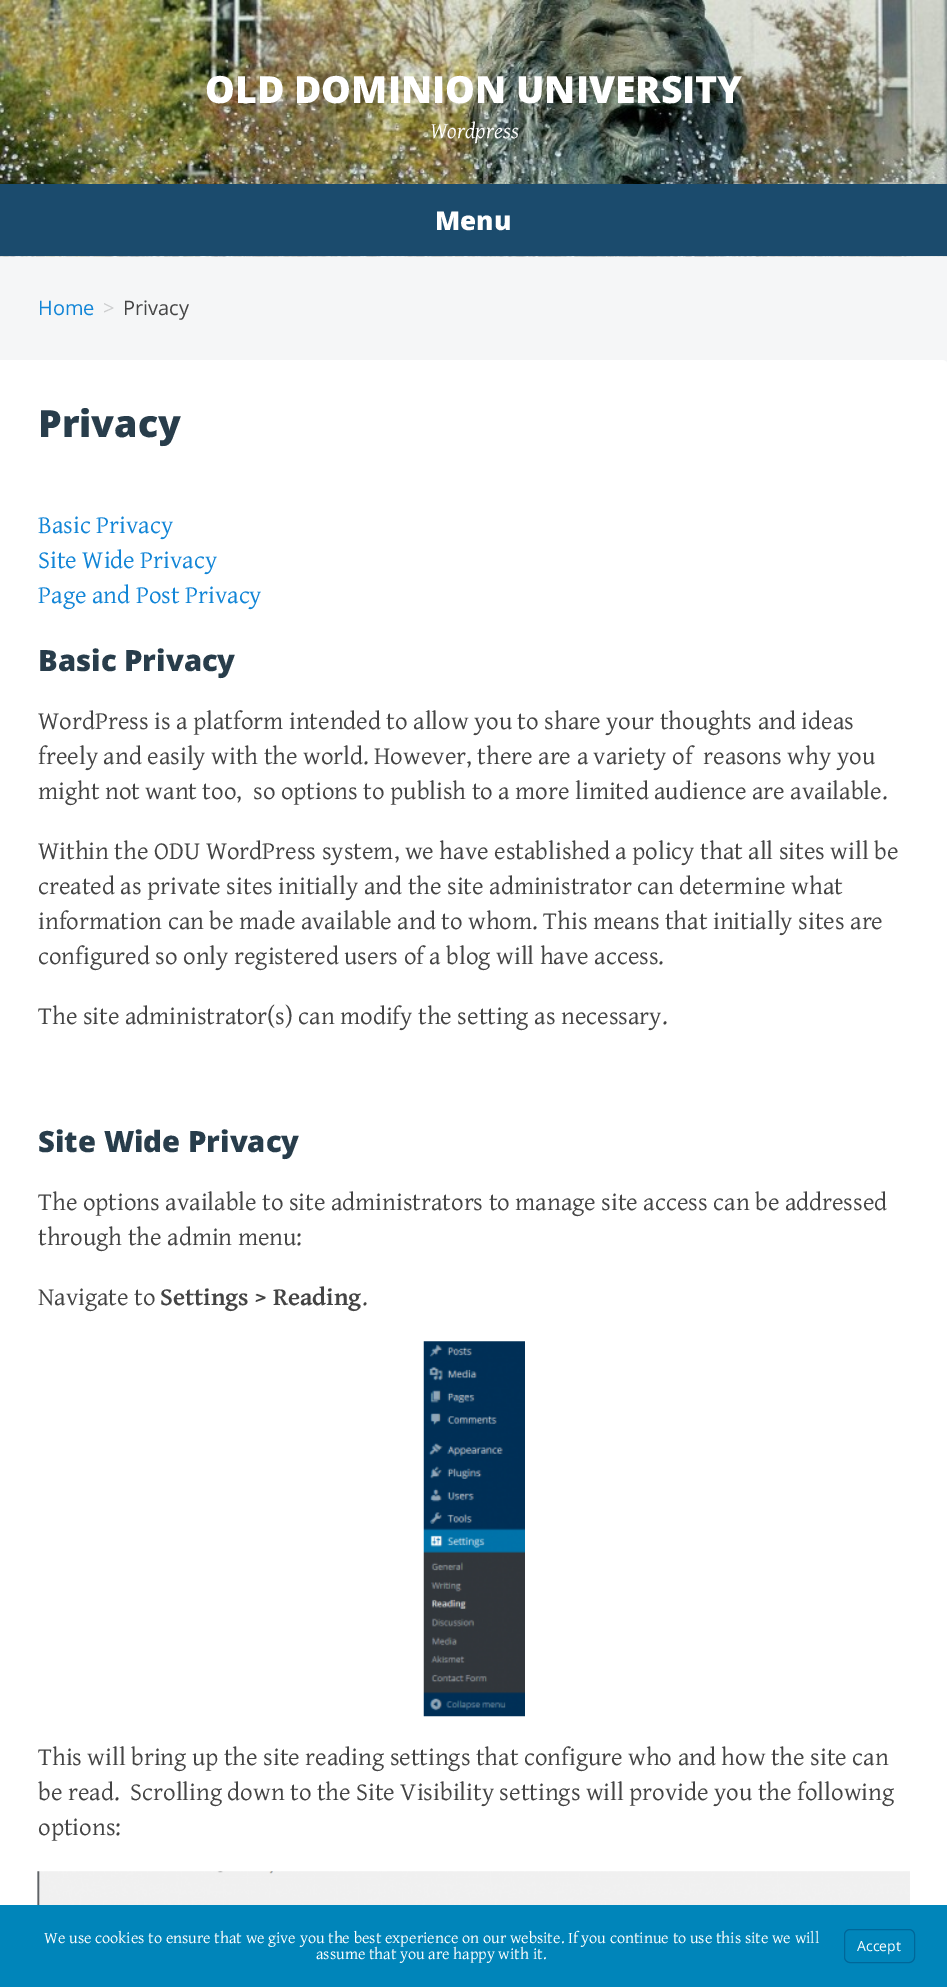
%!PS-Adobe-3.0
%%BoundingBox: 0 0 947 1987
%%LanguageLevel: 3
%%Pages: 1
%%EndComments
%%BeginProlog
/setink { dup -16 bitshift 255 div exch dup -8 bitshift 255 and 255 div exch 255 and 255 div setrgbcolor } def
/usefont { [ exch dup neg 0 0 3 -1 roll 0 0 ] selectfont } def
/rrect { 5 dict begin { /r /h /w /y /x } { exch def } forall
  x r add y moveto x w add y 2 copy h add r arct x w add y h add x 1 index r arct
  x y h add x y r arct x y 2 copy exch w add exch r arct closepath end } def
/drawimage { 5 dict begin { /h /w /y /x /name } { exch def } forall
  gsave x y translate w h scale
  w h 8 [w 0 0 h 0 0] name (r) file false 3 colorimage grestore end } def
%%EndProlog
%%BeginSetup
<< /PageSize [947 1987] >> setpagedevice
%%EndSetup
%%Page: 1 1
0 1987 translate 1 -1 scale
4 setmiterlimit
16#F5F6F7 setink
0 0 947 1987 rectfill
(img1.raw) 0 0 947 257 drawimage
/OpenSans-ExtraBold 37.5 usefont
16#FFFFFF setink
205 103 moveto (OLD DOMINION UNIVERSITY) show
/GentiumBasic-Italic 22.5 usefont
430 138 moveto (Wordpress) show
16#1B4B6D setink
0 184 947 72 rectfill
/OpenSans-ExtraBold 26 usefont
16#FFFFFF setink
435 230 moveto (Menu) show
/OpenSans-Regular 20 usefont
16#1185D7 setink
38 315 moveto (Home) show
16#CCCDCE setink
103 315 moveto (>) show
16#444444 setink
123 315 moveto (Privacy) show
16#FFFFFF setink
0 360 moveto 942 360 lineto 945.5 360 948 362.5 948 366 curveto 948 1987 lineto 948 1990.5 945.5 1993 942 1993 curveto 0 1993 lineto closepath fill
/OpenSans-ExtraBold 37.5 usefont
16#283D4B setink
38 437 moveto (Privacy) show
/GentiumBasic-Regular 25 usefont
16#1185D7 setink
[
    [(Basic Privacy) 38 533]
    [(Site Wide Privacy) 38 568]
    [(Page and Post Privacy) 38 603]
] { aload pop moveto show } forall
/OpenSans-ExtraBold 29.25 usefont
16#283D4B setink
38 671 moveto (Basic Privacy) show
/GentiumBasic-Regular 25 usefont
16#444444 setink
[
    [(WordPress is a platform intended to allow you to share your thoughts and ideas) 38 729]
    [(freely and easily with the world. However, there are a variety of  reasons why you) 38 764]
    [(might not want too,  so options to publish to a more limited audience are available.) 38 799]
    [(Within the ODU WordPress system, we have established a policy that all sites will be) 38 859]
    [(created as private sites initially and the site administrator can determine what) 38 894]
    [(information can be made available and to whom. This means that initially sites are) 38 929]
    [(configured so only registered users of a blog will have access.) 38 964]
    [(The site administrator\(s\) can modify the setting as necessary.) 38 1024]
] { aload pop moveto show } forall
/OpenSans-ExtraBold 29.25 usefont
16#283D4B setink
38 1152 moveto (Site Wide Privacy) show
/GentiumBasic-Regular 25 usefont
16#444444 setink
[
    [(The options available to site administrators to manage site access can be addressed) 38 1210]
    [(through the admin menu:) 38 1245]
    [(Navigate to) 38 1305]
] { aload pop moveto show } forall
/GentiumBasic-Bold 25 usefont
160 1305 moveto (Settings > Reading) show
/GentiumBasic-Regular 25 usefont
362 1305 moveto (.) show
(img2.raw) 423 1341 102 376 drawimage
[
    [(This will bring up the site reading settings that configure who and how the site can) 38 1765]
    [(be read.  Scrolling down to the Site Visibility settings will provide you the following) 38 1800]
    [(options:) 38 1835]
] { aload pop moveto show } forall
(img3.raw) 37 1871 873 34 drawimage
16#0085BA setink
0 1905 947 82 rectfill
/GentiumBasic-Regular 16.25 usefont
16#FFFFFF setink
44 1943 moveto (We use cookies to ensure that we give you the best experience on our website. If you continue to use this site we will) show
316 1959 moveto (assume that you are happy with it.) show
16#006799 setink
844.5 1929.5 70 33 5.5 rrect stroke
/OpenSans-Regular 14 usefont
16#FFFFFF setink
857 1951 moveto (Accept) show
showpage
%%EOF
